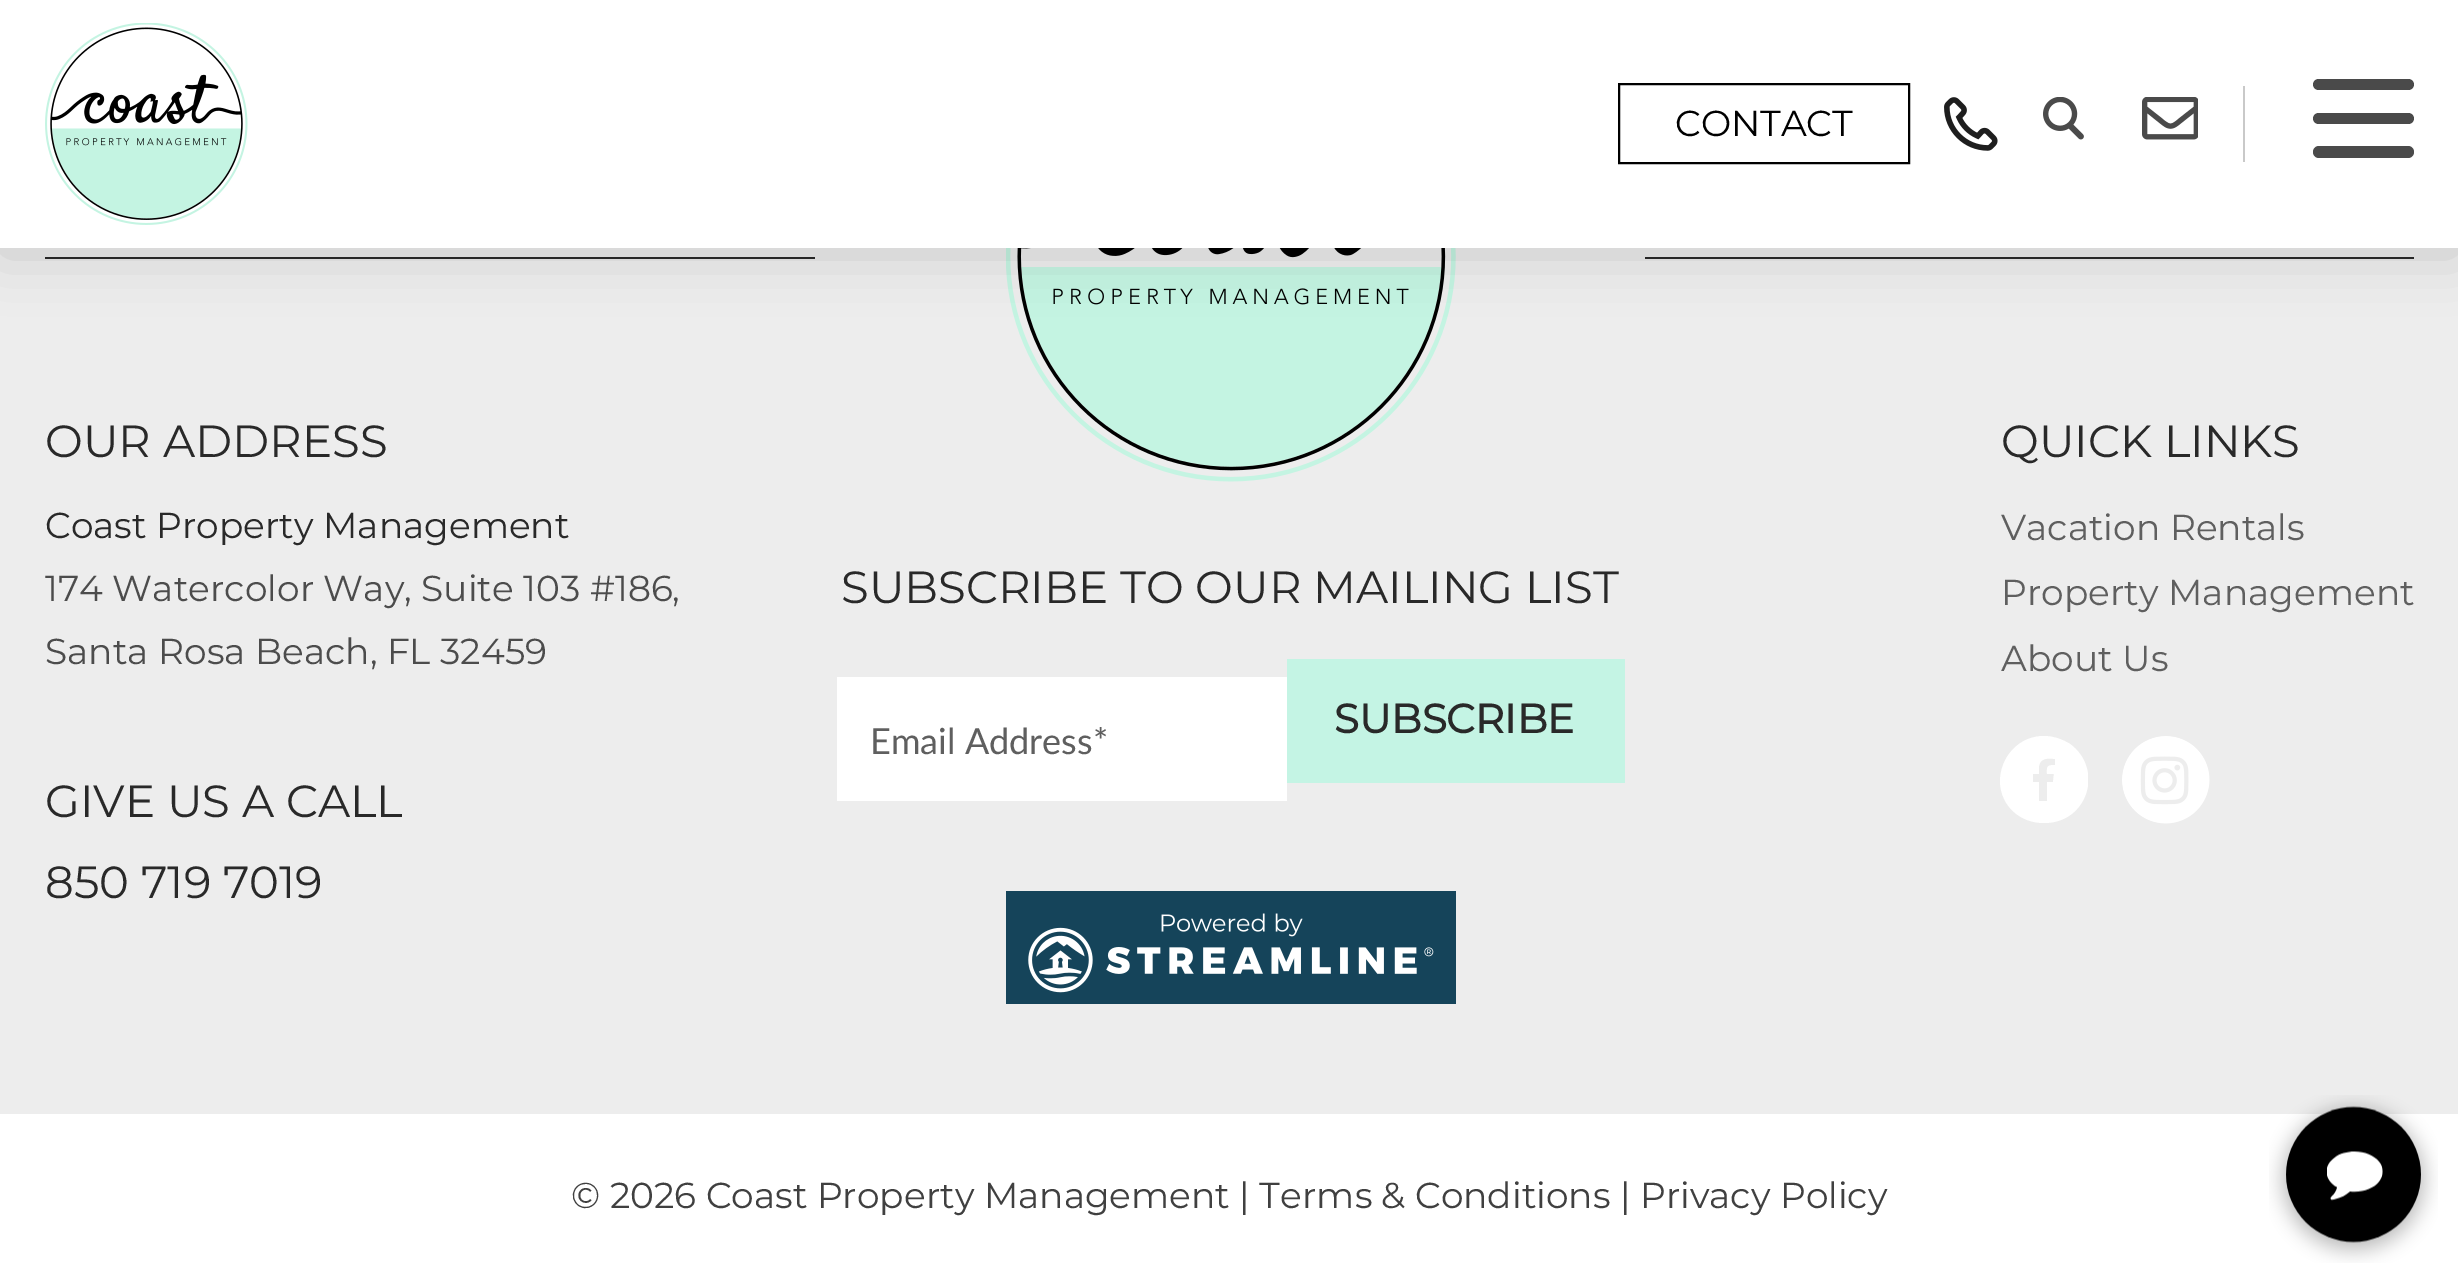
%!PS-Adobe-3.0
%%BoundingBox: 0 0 2458 1280
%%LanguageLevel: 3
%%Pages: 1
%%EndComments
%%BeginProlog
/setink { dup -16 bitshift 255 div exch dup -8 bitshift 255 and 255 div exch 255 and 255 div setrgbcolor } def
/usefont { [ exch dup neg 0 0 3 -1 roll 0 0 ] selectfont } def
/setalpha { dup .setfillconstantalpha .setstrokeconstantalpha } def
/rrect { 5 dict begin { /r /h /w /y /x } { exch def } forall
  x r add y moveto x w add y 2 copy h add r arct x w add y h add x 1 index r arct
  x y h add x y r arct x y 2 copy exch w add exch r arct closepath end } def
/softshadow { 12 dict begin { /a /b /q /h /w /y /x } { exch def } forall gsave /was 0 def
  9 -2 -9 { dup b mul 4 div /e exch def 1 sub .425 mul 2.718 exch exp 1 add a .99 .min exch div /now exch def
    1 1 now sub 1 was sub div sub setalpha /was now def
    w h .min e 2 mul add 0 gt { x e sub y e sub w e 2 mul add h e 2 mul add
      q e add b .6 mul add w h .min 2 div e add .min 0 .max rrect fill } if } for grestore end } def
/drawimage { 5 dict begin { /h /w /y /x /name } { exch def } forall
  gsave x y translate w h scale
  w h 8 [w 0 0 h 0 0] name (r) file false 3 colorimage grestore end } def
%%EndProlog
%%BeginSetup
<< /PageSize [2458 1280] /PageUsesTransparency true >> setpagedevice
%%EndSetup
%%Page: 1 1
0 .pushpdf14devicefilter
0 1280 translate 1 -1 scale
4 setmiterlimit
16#EDEDED setink
0 0 2458 1280 rectfill
16#FFFFFF setink
0 0 2458 248 rectfill
16#292929 setink
45 257 770 2 rectfill
(img5.raw) 1006 248 450 234 drawimage
1645 257 769 2 rectfill
gsave
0 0 moveto 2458 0 lineto 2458 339 lineto 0 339 lineto closepath 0 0 moveto 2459 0 lineto 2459 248 lineto 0 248 lineto closepath eoclip newpath
16#000000 setink
0 7 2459 247 0 28 0.16 softshadow
grestore
(img1.raw) 45 23 203 202 drawimage
16#000000 setink
2 setlinewidth
1619 84 290 79 rectstroke
/Montserrat-Thin 36 usefont
1675 136 moveto (CONTACT) show
(img2.raw) 1944 97 54 54 drawimage
(img3.raw) 2043 97 41 43 drawimage
16#C9C9C9 setink
2243 86 2 76 rectfill
(img4.raw) 2142 97 56 43 drawimage
16#4A4A4A setink
2313 79 101 11 5.5 rrect fill
2313 113 101 11 5.5 rrect fill
2313 146 101 12 6 rrect fill
/Montserrat-Thin 45 usefont
16#292929 setink
45 457 moveto (OUR ADDRESS) show
/Montserrat-Thin 36 usefont
45 538 moveto (Coast Property Management) show
16#4C4C4C setink
45 601 moveto (174 Watercolor Way, Suite 103 #186,) show
45 664 moveto (Santa Rosa Beach, FL 32459) show
/Montserrat-Thin 45 usefont
16#292929 setink
[
    [(GIVE US A CALL) 45 817]
    [(850 719 7019) 45 898]
    [(SUBSCRIBE TO OUR MAILING LIST) 841 603]
] { aload pop moveto show } forall
16#C4F4E4 setink
1287 659 338 124 rectfill
/Montserrat-Bold 40.5 usefont
16#292929 setink
1334 733 moveto (SUBSCRIBE) show
16#FFFFFF setink
837 677 450 124 rectfill
/Lato-Regular 36 usefont
16#5F5F5F setink
870 754 moveto (Email Address*) show
(img6.raw) 1006 891 450 113 drawimage
/Montserrat-Thin 45 usefont
16#292929 setink
2001 457 moveto (QUICK LINKS) show
/Montserrat-Thin 36 usefont
16#5F5F5F setink
[
    [(Vacation Rentals) 2001 540]
    [(Property Management) 2001 605]
    [(About Us) 2001 671]
] { aload pop moveto show } forall
gsave
2000 736 88 88 rectclip
16#FFFFFF setink
2044 823 moveto 2088 823 2104 769 2070 744 curveto 2062 739 2053 736 2044 736 curveto 2019 736 2000 757 2000 782 curveto 2001 806 2020 823 2044 823 curveto closepath 2039 782 moveto 2033 782 lineto 2033 774 lineto 2039 774 lineto 2039 766 lineto 2040 758 2048 758 2055 759 curveto 2055 765 lineto 2046 765 2047 767 2047 774 curveto 2054 774 lineto 2053 782 lineto 2047 782 lineto 2047 801 lineto 2039 801 lineto closepath eofill
grestore
(img7.raw) 2122 736 88 88 drawimage
16#FFFFFF setink
0 1114 2458 166 rectfill
16#404040 setink
571 1208 moveto (© 2026 Coast Property Management | Terms & Conditions | Privacy Policy) show
(img8.raw) 2269 1095 169 168 drawimage
.poppdf14devicefilter showpage
%%EOF
